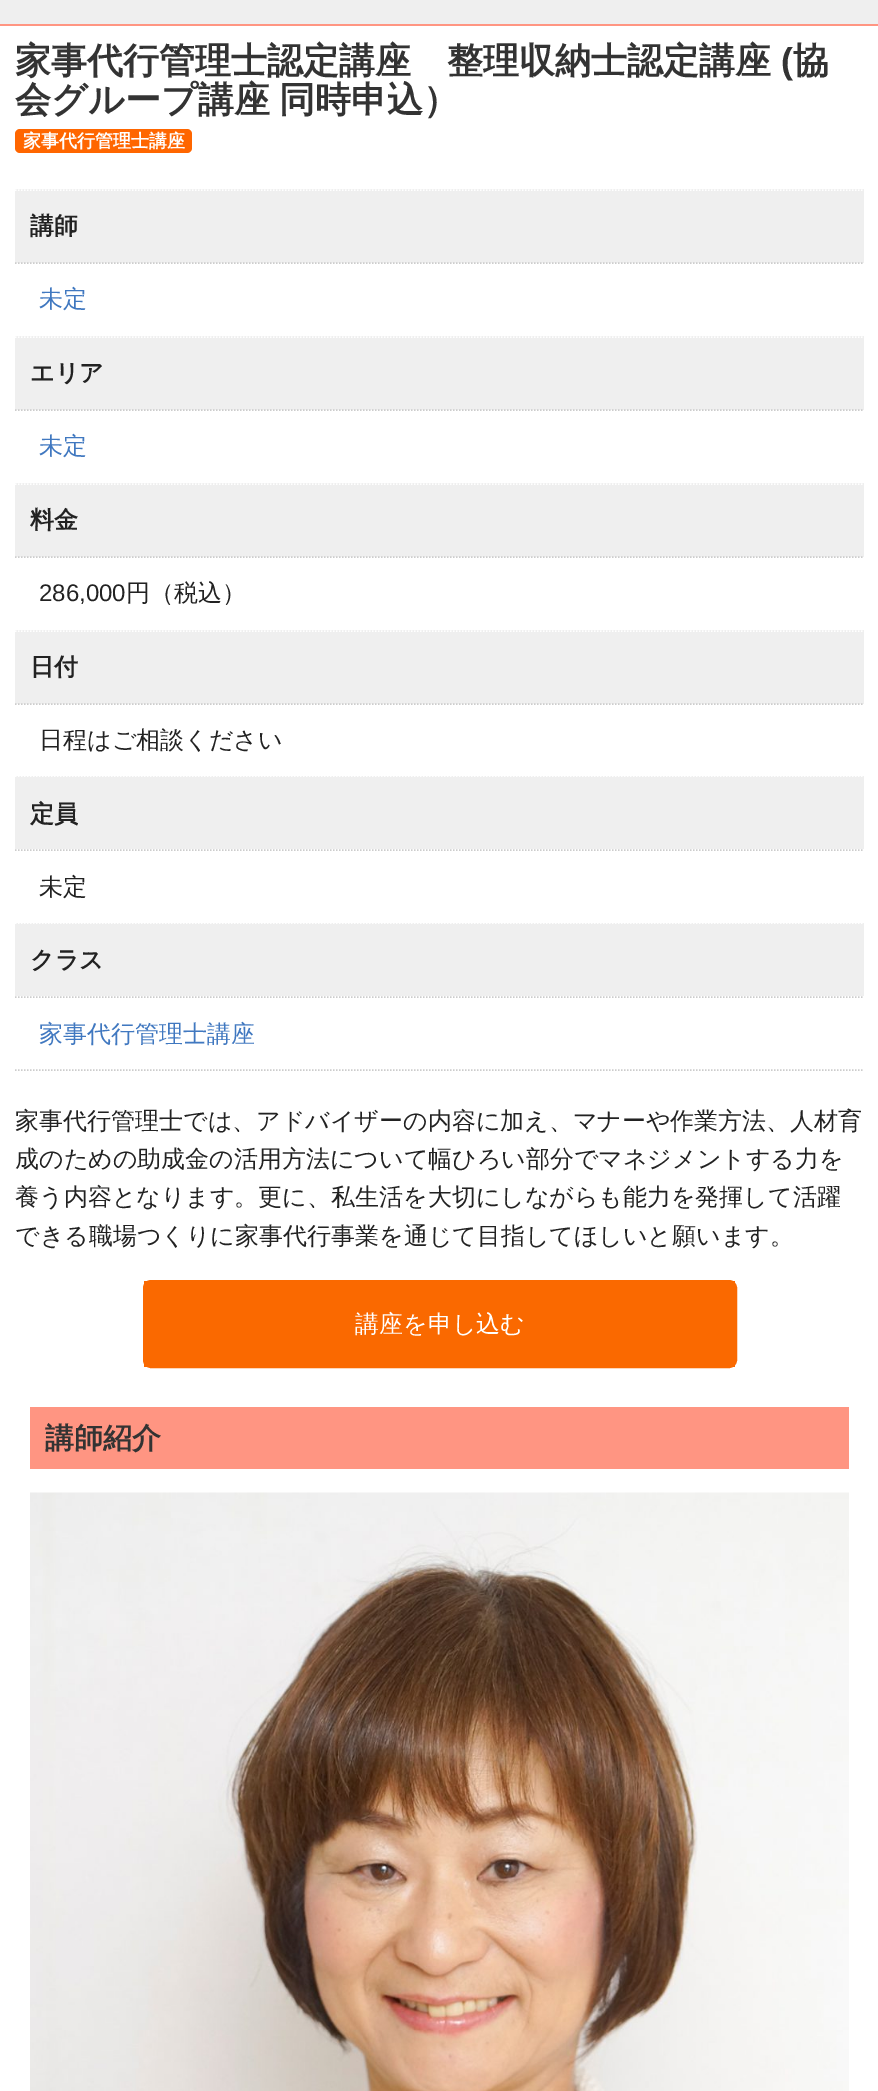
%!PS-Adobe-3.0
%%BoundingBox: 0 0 878 2091
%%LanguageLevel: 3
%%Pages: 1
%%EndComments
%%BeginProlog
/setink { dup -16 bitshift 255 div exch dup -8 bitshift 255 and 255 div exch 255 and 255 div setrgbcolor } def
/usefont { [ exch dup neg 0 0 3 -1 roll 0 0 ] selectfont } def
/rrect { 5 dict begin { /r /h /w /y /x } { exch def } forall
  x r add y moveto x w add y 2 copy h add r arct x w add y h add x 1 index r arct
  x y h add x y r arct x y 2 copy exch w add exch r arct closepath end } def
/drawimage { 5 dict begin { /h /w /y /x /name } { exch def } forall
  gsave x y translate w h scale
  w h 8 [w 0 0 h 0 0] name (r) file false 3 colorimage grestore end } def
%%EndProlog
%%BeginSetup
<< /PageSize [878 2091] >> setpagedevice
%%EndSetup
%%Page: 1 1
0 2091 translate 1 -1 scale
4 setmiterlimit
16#FFFFFF setink
0 0 878 2091 rectfill
16#EFEFEF setink
0 0 878 24 rectfill
16#FF9582 setink
0 24 878 2 rectfill
/WenQuanYiZenHei-Bold 36 usefont
16#333333 setink
15 73 moveto (家事代行管理士認定講座　整理収納士認定講座) show
/LiberationSans-Bold 36 usefont
781 73 moveto (\() show
/WenQuanYiZenHei-Bold 36 usefont
793 73 moveto (協) show
15 112 moveto -1 0 32 (会グループ講座 同時申込）) widthshow
16#FF6600 setink
15 129 177 24 5 rrect fill
/WenQuanYiZenHei-Bold 18 usefont
16#FFFFFF setink
23 147 moveto (家事代行管理士講座) show
16#EFEFEF setink
15 189 849 807 rectfill
16#FFFFFF setink
1.5 setlinewidth
[1.5 1.5] 0 setdash
15 190 moveto 864 190 lineto stroke
/WenQuanYiZenHei-Bold 24 usefont
16#222222 setink
30 234 moveto (講師) show
16#FFFFFF setink
15 263 849 73 rectfill
16#CCCCCC setink
15 263 moveto 864 263 lineto stroke
/WenQuanYiZenHei-Medium 24 usefont
16#4078C0 setink
39 307 moveto (未定) show
16#FFFFFF setink
15 337 moveto 864 337 lineto stroke
/WenQuanYiZenHei-Bold 24 usefont
16#222222 setink
30 381 moveto (エリア) show
16#FFFFFF setink
15 410 849 73 rectfill
16#CCCCCC setink
15 410 moveto 864 410 lineto stroke
/WenQuanYiZenHei-Medium 24 usefont
16#4078C0 setink
39 454 moveto (未定) show
16#FFFFFF setink
15 484 moveto 864 484 lineto stroke
/WenQuanYiZenHei-Bold 24 usefont
16#222222 setink
30 528 moveto (料金) show
16#FFFFFF setink
15 557 849 73 rectfill
16#CCCCCC setink
15 557 moveto 864 557 lineto stroke
/LiberationSans-Regular 24 usefont
16#222222 setink
39 601 moveto (286,000) show
/WenQuanYiZenHei-Medium 24 usefont
126 601 moveto (円（税込）) show
16#FFFFFF setink
15 631 moveto 864 631 lineto stroke
/WenQuanYiZenHei-Bold 24 usefont
16#222222 setink
30 675 moveto (日付) show
16#FFFFFF setink
15 704 849 72 rectfill
16#CCCCCC setink
15 704 moveto 864 704 lineto stroke
/WenQuanYiZenHei-Medium 24 usefont
16#222222 setink
39 748 moveto (日程はご相談ください) show
16#FFFFFF setink
15 776 moveto 864 776 lineto stroke
/WenQuanYiZenHei-Bold 24 usefont
16#222222 setink
30 822 moveto (定員) show
16#FFFFFF setink
15 849 849 74 rectfill
16#CCCCCC setink
15 850 moveto 864 850 lineto stroke
/WenQuanYiZenHei-Medium 24 usefont
16#222222 setink
39 895 moveto (未定) show
16#FFFFFF setink
15 923 moveto 864 923 lineto stroke
/WenQuanYiZenHei-Bold 24 usefont
16#222222 setink
30 968 moveto (クラス) show
16#CCCCCC setink
15 997 moveto 864 997 lineto stroke
15 1070 moveto 864 1070 lineto stroke
/WenQuanYiZenHei-Medium 24 usefont
16#4078C0 setink
39 1042 moveto (家事代行管理士講座) show
16#222222 setink
[
    [(家事代行管理士では、アドバイザーの内容に加え、マナーや作業方法、人材育) 15 1129]
    [(成のための助成金の活用方法について幅ひろい部分でマネジメントする力を) 15 1167]
    [(養う内容となります。更に、私生活を大切にしながらも能力を発揮して活躍) 15 1205]
    [(できる職場つくりに家事代行事業を通じて目指してほしいと願います。) 15 1244]
] { aload pop moveto show } forall
16#FA6900 setink
2 setlinewidth
[] 0 setdash
144 1281 592 86 7 rrect stroke
144 1281 591 86 rectfill
16#FFFFFF setink
355 1332 moveto (講座を申し込む) show
16#FF9582 setink
30 1407 819 62 rectfill
/WenQuanYiZenHei-Bold 29 usefont
16#333333 setink
45 1448 moveto (講師紹介) show
(img1.raw) 30 1492 819 599 drawimage
showpage
%%EOF
